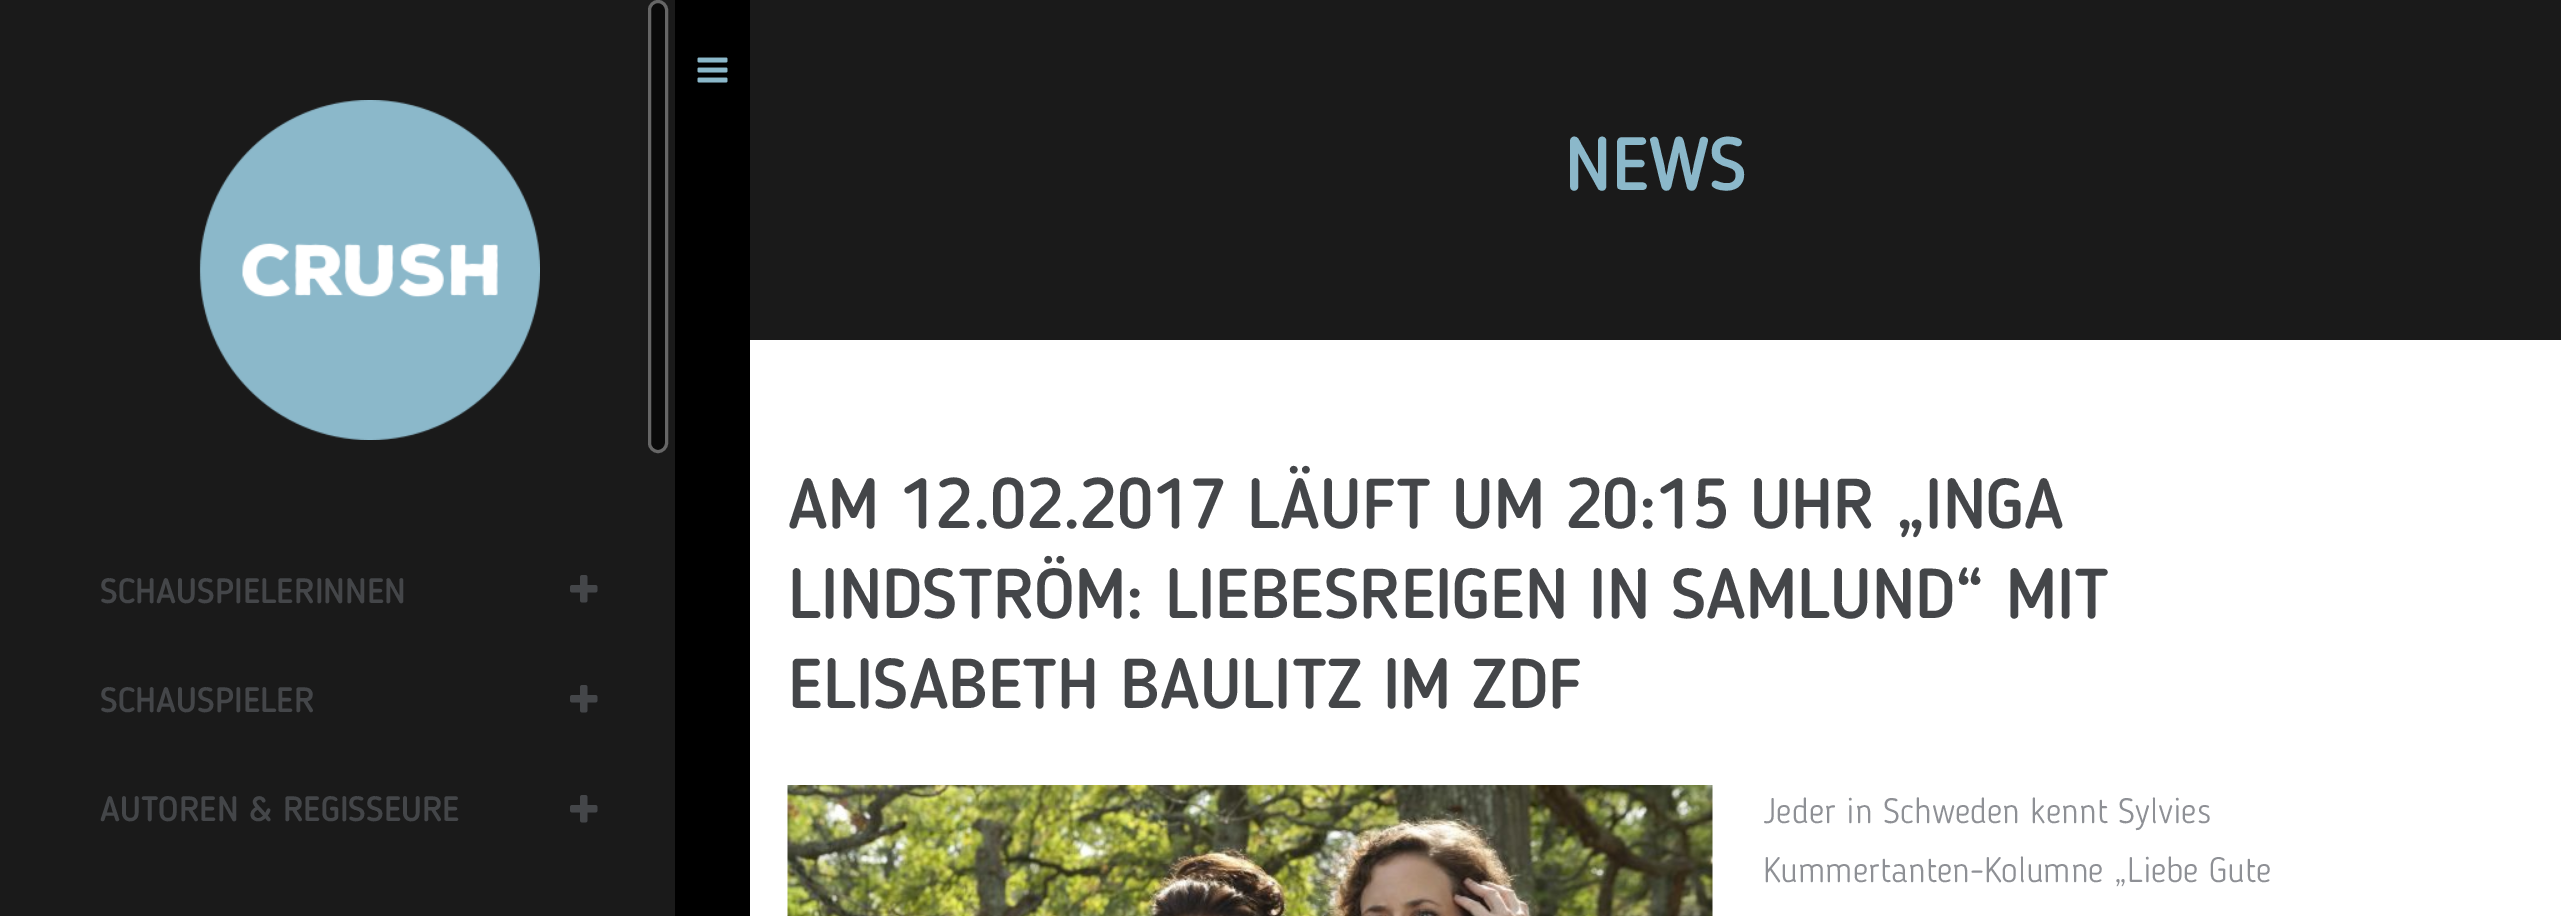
%!PS-Adobe-3.0
%%BoundingBox: 0 0 2561 916
%%LanguageLevel: 3
%%Pages: 1
%%EndComments
%%BeginProlog
/setink { dup -16 bitshift 255 div exch dup -8 bitshift 255 and 255 div exch 255 and 255 div setrgbcolor } def
/usefont { [ exch dup neg 0 0 3 -1 roll 0 0 ] selectfont } def
/rrect { 5 dict begin { /r /h /w /y /x } { exch def } forall
  x r add y moveto x w add y 2 copy h add r arct x w add y h add x 1 index r arct
  x y h add x y r arct x y 2 copy exch w add exch r arct closepath end } def
/drawimage { 5 dict begin { /h /w /y /x /name } { exch def } forall
  gsave x y translate w h scale
  w h 8 [w 0 0 h 0 0] name (r) file false 3 colorimage grestore end } def
%%EndProlog
%%BeginSetup
<< /PageSize [2561 916] >> setpagedevice
%%EndSetup
%%Page: 1 1
0 916 translate 1 -1 scale
4 setmiterlimit
16#FFFFFF setink
0 0 2561 916 rectfill
16#1A1A1A setink
0 0 675 916 rectfill
(img1.raw) 199 100 341 340 drawimage
16#0A0A0A setink
649.5 1.5 17 450 8.5 rrect gsave fill grestore
16#666666 setink
3 setlinewidth
stroke
/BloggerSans-Medium 35 usefont
16#444649 setink
100 603 moveto (SCHAUSPIELERINNEN) show
(img2.raw) 570 575 28 28 drawimage
100 712 moveto (SCHAUSPIELER) show
(img2.raw) 570 685 28 28 drawimage
100 821 moveto (AUTOREN & REGISSEURE) show
(img2.raw) 570 795 28 28 drawimage
16#000000 setink
675 0 75 916 rectfill
(img3.raw) 697 57 31 26 drawimage
16#1A1A1A setink
750 0 1811 340 rectfill
/BloggerSans-Medium 75 usefont
16#8BB8CA setink
1565 190 moveto (NEWS) show
/BloggerSans-Medium 70 usefont
16#444649 setink
[
    [(AM 12.02.2017 LÄUFT UM 20:15 UHR „INGA) 788 528]
    [(LINDSTRÖM: LIEBESREIGEN IN SAMLUND“ MIT) 788 618]
    [(ELISABETH BAULITZ IM ZDF) 788 708]
] { aload pop moveto show } forall
(img4.raw) 787 785 926 131 drawimage
/BloggerSans-Light 35 usefont
16#8E9095 setink
1763 823 moveto (Jeder in Schweden kennt Sylvies) show
1763 882 moveto (Kummertanten-Kolumne „Liebe Gute) show
showpage
%%EOF
